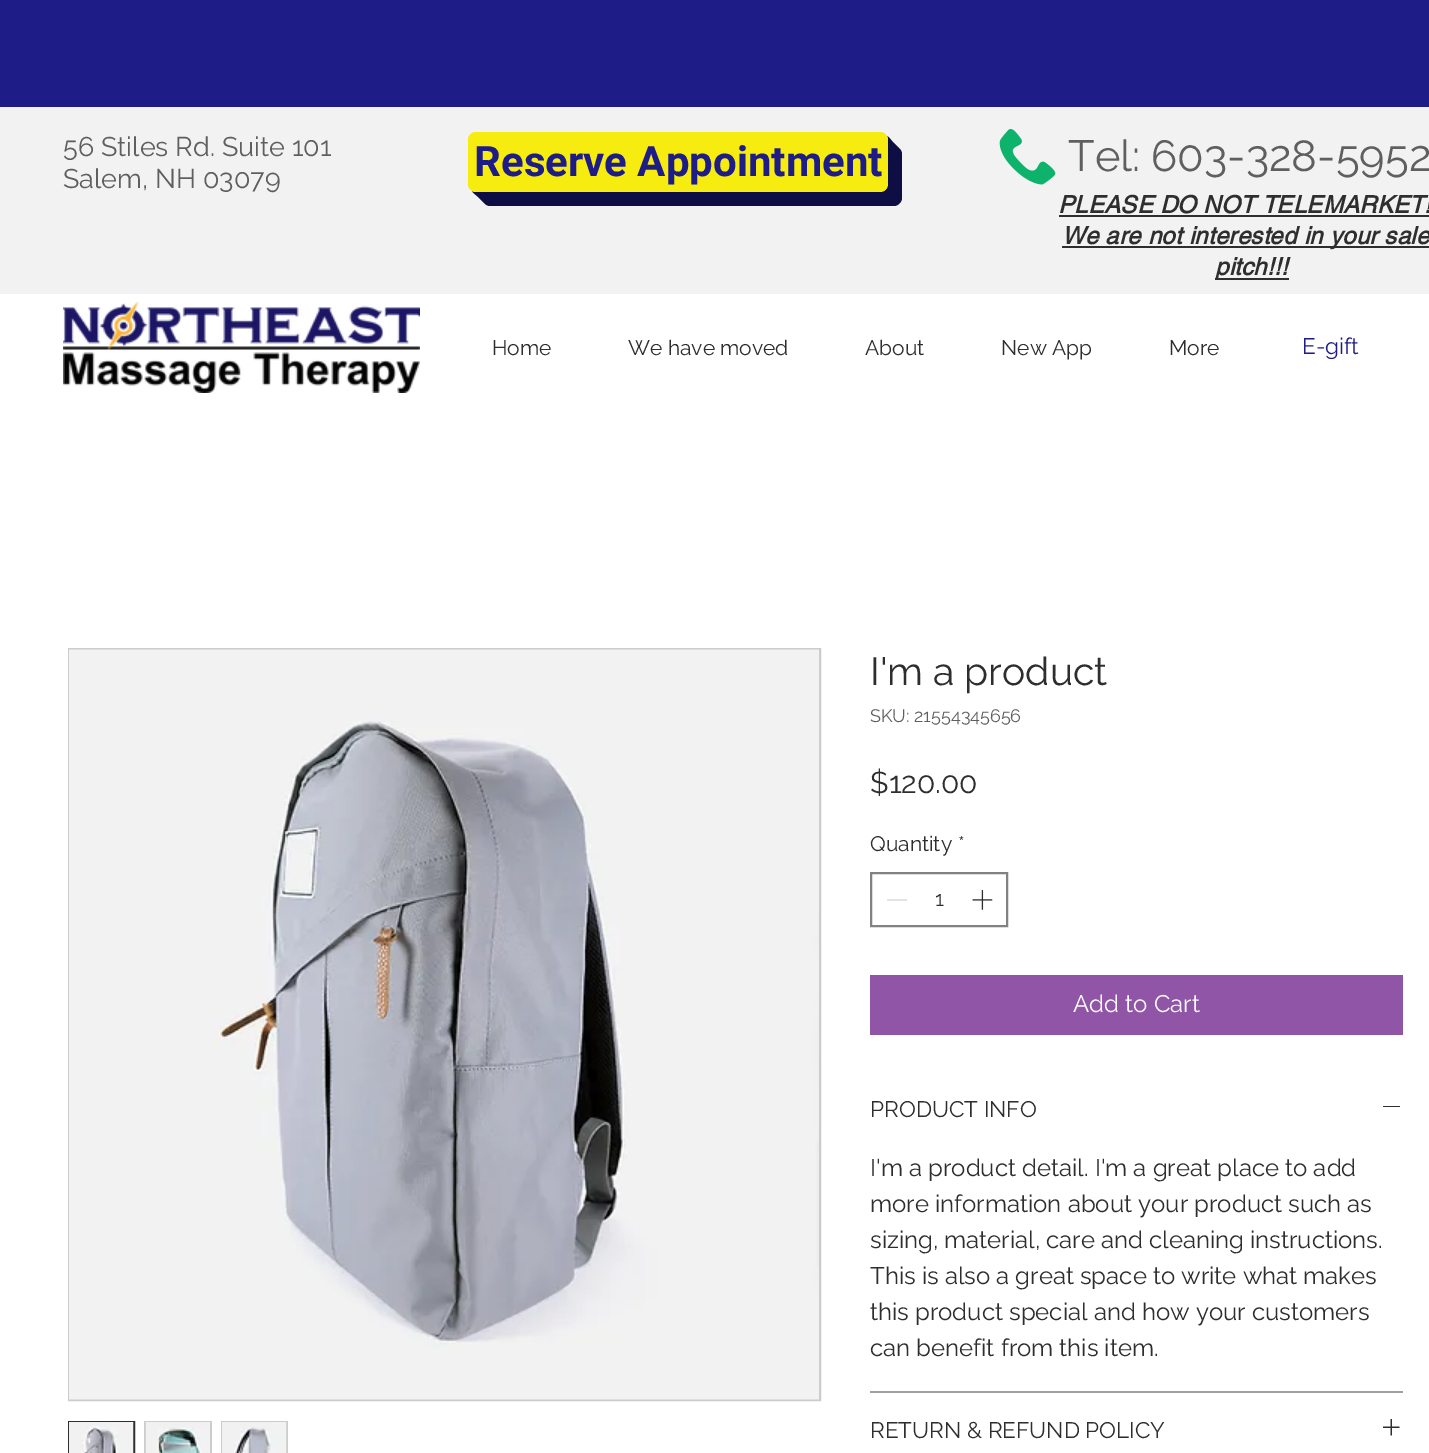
%!PS-Adobe-3.0
%%BoundingBox: 0 0 1429 1453
%%LanguageLevel: 3
%%Pages: 1
%%EndComments
%%BeginProlog
/setink { dup -16 bitshift 255 div exch dup -8 bitshift 255 and 255 div exch 255 and 255 div setrgbcolor } def
/usefont { [ exch dup neg 0 0 3 -1 roll 0 0 ] selectfont } def
/rrect { 5 dict begin { /r /h /w /y /x } { exch def } forall
  x r add y moveto x w add y 2 copy h add r arct x w add y h add x 1 index r arct
  x y h add x y r arct x y 2 copy exch w add exch r arct closepath end } def
/drawimage { 5 dict begin { /h /w /y /x /name } { exch def } forall
  gsave x y translate w h scale
  w h 8 [w 0 0 h 0 0] name (r) file false 3 colorimage grestore end } def
%%EndProlog
%%BeginSetup
<< /PageSize [1429 1453] >> setpagedevice
%%EndSetup
%%Page: 1 1
0 1453 translate 1 -1 scale
4 setmiterlimit
16#FFFFFF setink
0 0 1429 1453 rectfill
16#1E1C87 setink
0 0 1429 107 rectfill
16#F2F2F2 setink
0 107 1429 187 rectfill
/Raleway-Regular 27 usefont
16#605E5E setink
63 156 moveto (56 Stiles Rd. Suite 101) show
63 188 moveto (Salem, NH 03079) show
16#0F0E44 setink
482 192 moveto 482 198 lineto 482 202 486 206 490 206 curveto 894 206 lineto 898 206 902 202 902 198 curveto 902 154 lineto 902 150 898 146 894 146 curveto 888 146 lineto 888 184 lineto 888 189 885 192 880 192 curveto closepath fill
479 192 moveto 479 195 lineto 479 199 483 203 487 203 curveto 891 203 lineto 895 203 899 199 899 195 curveto 899 151 lineto 899 147 895 143 891 143 curveto 888 143 lineto 888 184 lineto 888 189 885 192 880 192 curveto closepath fill
476 192 moveto 476 196 480 200 484 200 curveto 888 200 lineto 892 200 896 196 896 192 curveto 896 148 lineto 896 144 892 140 888 140 curveto 888 184 lineto 888 189 885 192 880 192 curveto closepath fill
473 192 moveto 475 195 478 197 481 197 curveto 885 197 lineto 889 197 893 193 893 189 curveto 893 145 lineto 893 142 891 139 888 137 curveto 888 177 lineto 888 183 889 192 880 192 curveto closepath fill
472 191 moveto 473 193 475 194 478 194 curveto 882 194 lineto 886 194 890 190 890 186 curveto 890 142 lineto 890 139 889 137 887 136 curveto 888 137 888 138 888 140 curveto 888 184 lineto 888 189 885 192 880 192 curveto 476 192 lineto 474 192 473 192 472 191 curveto closepath fill
16#F7EC0F setink
468 132 420 60 8 rrect fill
/Roboto-Bold 42 usefont
16#1E1C87 setink
474 176 moveto (Reserve Appointment) show
(img1.raw) 999 129 57 56 drawimage
/Raleway-Regular 43.5 usefont
16#605E5E setink
1068 171 moveto (Tel: 603-328-5952) show
/helvetica-BoldItalic 24 usefont
16#2F2E2E setink
1058 213 moveto 0.25 0 (PLEASE DO NOT TELEMARKET!) ashow
1059 215 370 2 rectfill
1062 246 367 2 rectfill
1062 244 moveto 0.25 0 (We are not interested in your sale) ashow
1215 278 74 2 rectfill
1215 275 moveto 0.25 0 (pitch!!!) ashow
(img2.raw) 63 301 357 92 drawimage
/Raleway-Regular 21 usefont
[
    [(Home) 492 355]
    [(We have moved) 628 355]
    [(About) 865 355]
    [(New App) 1001 355]
    [(More) 1169 355]
] { aload pop moveto show } forall
/Raleway-Regular 22.5 usefont
16#1E1C87 setink
1302 354 moveto (E-gift) show
16#CCCCCC setink
2 setlinewidth
69 649 751 751 rectstroke
(img3.raw) 69 649 750 751 drawimage
16#2F2E2E setink
69 1422 65 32 rectstroke
(img4.raw) 69 1422 65 31 drawimage
16#CCCCCC setink
144 1421 68 32 rectfill
(img5.raw) 145 1422 65 31 drawimage
221 1421 67 32 rectfill
(img6.raw) 222 1422 65 31 drawimage
/Raleway-Regular 39 usefont
16#2F2E2E setink
870 685 moveto (I'm a product) show
/Raleway-Regular 18 usefont
16#605E5E setink
870 722 moveto (SKU: 21554345656) show
/Raleway-Regular 30 usefont
16#2F2E2E setink
870 793 moveto ($120.00) show
/Raleway-Regular 21 usefont
870 851 moveto (Quantity) show
958 851 moveto (*) show
16#828282 setink
871 873 136 53 rectstroke
16#E3E3E3 setink
887 899 20 2 rectfill
16#2F2E2E setink
935 906 moveto (1) show
(img7.raw) 972 890 21 20 drawimage
16#9155A7 setink
870 975 533 60 rectfill
/Raleway-Regular 24 usefont
16#FFFFFF setink
1073 1012 moveto (Add to Cart) show
16#A0A09F setink
870 1391 533 2 rectfill
/Raleway-Regular 22.5 usefont
16#2F2E2E setink
870 1117 moveto (PRODUCT INFO) show
1383 1106 17 1 rectfill
/Raleway-Regular 24 usefont
[
    [(I'm a product detail. I'm a great place to add) 870 1176]
    [(more information about your product such as) 870 1212]
    [(sizing, material, care and cleaning instructions.) 870 1248]
    [(This is also a great space to write what makes) 870 1284]
    [(this product special and how your customers) 870 1320]
    [(can benefit from this item.) 870 1356]
] { aload pop moveto show } forall
/Raleway-Regular 22.5 usefont
870 1438 moveto (RETURN & REFUND POLICY) show
(img8.raw) 1383 1419 17 17 drawimage
showpage
%%EOF
